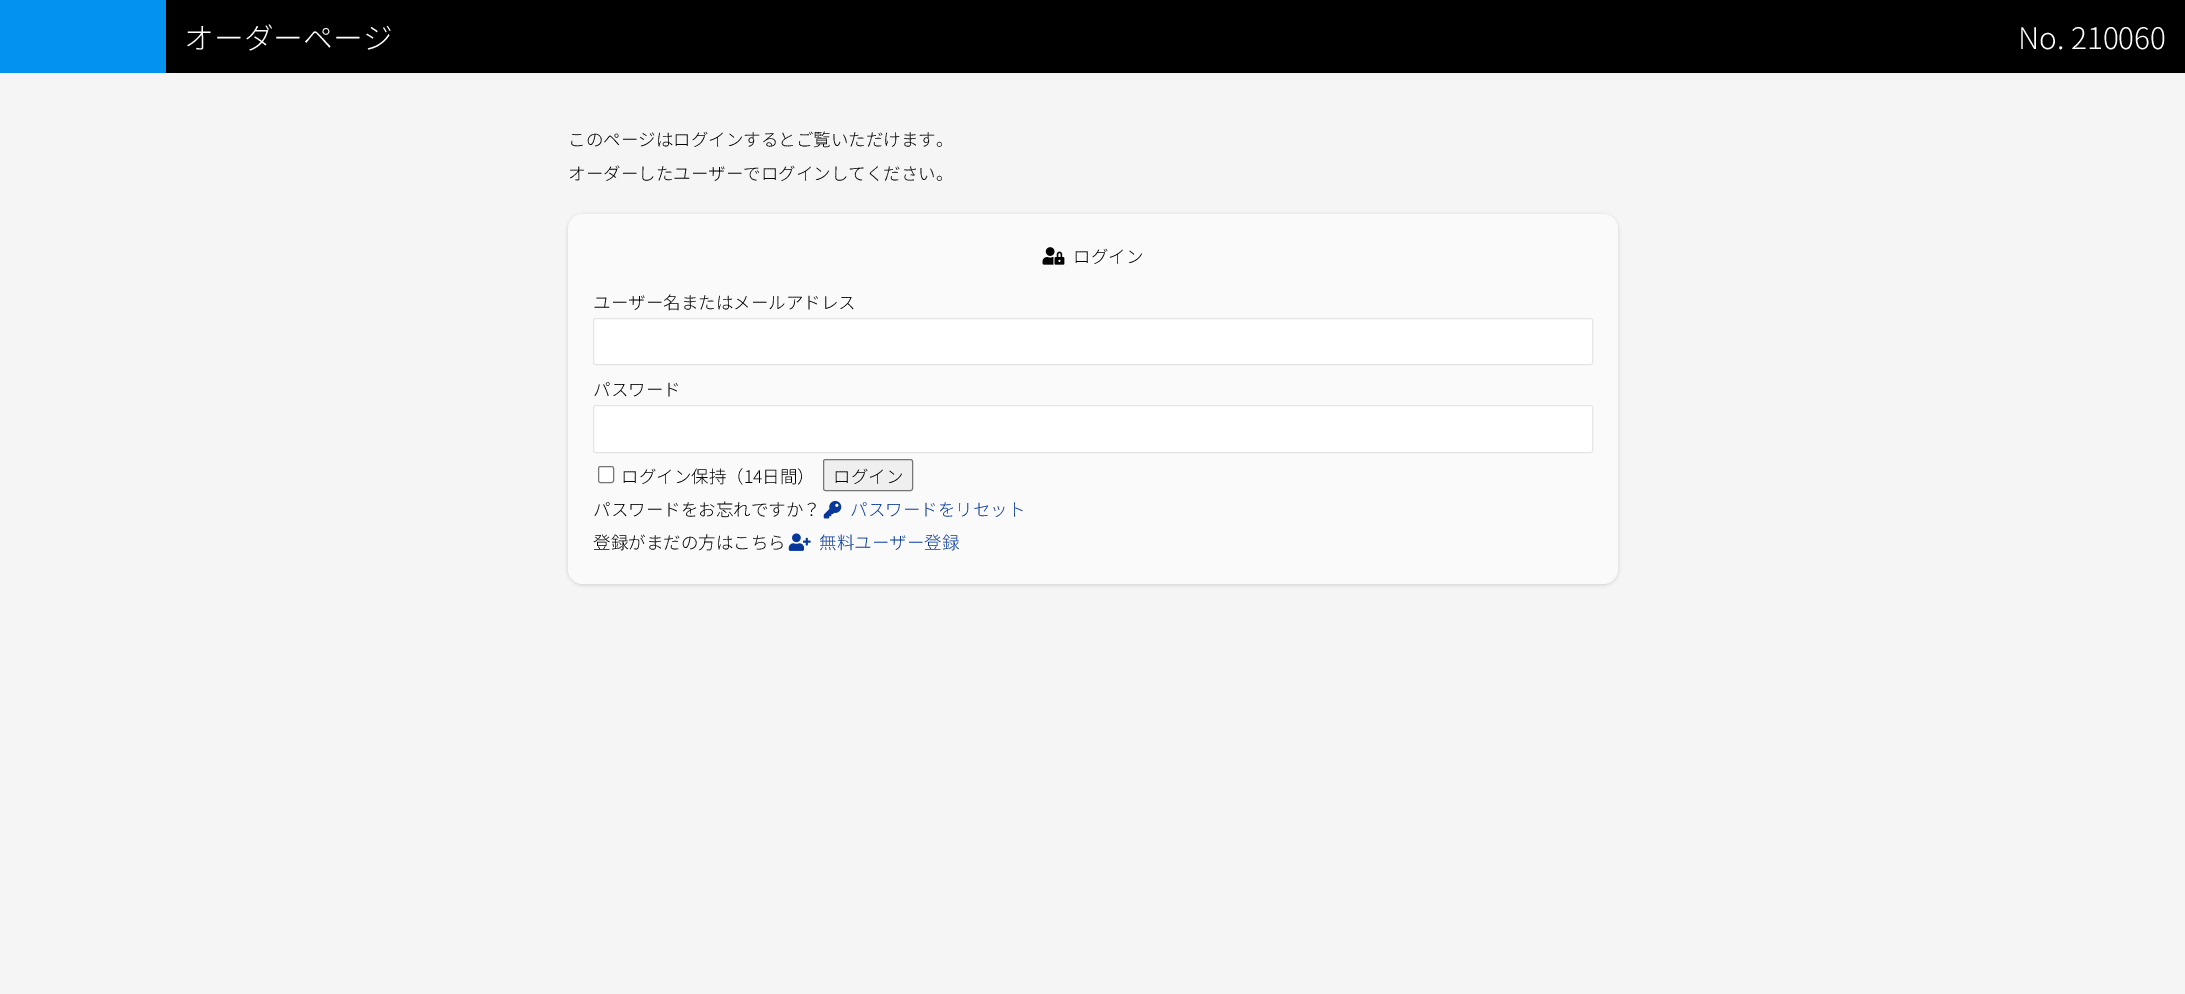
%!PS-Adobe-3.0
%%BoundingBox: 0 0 2185 994
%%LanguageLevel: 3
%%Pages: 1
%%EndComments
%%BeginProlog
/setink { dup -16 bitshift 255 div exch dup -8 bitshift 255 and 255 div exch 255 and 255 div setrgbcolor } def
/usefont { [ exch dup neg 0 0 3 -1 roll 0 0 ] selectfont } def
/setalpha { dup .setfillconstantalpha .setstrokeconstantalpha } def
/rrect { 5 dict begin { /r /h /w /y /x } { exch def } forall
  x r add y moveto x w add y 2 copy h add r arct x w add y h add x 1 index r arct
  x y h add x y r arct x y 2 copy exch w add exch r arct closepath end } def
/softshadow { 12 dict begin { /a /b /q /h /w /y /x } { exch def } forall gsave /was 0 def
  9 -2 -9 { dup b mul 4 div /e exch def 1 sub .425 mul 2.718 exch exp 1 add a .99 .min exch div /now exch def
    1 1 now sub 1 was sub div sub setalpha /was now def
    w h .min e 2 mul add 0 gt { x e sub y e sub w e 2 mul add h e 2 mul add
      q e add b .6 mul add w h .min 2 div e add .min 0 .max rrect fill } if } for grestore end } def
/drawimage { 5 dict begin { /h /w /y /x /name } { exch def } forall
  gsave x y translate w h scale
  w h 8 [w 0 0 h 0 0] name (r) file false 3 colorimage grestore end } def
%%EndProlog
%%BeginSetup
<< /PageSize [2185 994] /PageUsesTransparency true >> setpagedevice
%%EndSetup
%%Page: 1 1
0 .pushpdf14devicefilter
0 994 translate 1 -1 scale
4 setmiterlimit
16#F5F5F5 setink
0 0 2185 994 rectfill
16#000000 setink
166 0 2019 73 rectfill
16#0392EF setink
0 0 166 73 rectfill
/NotoSansJP-Light 29.75 usefont
16#FFFFFF setink
184 49 moveto (オーダーページ) show
2018 49 moveto (No. 210060) show
/NotoSansJP-Light 17.5 usefont
16#000000 setink
568 146 moveto (このページはログインするとご覧いただけます。) show
568 180 moveto (オーダーしたユーザーでログインしてください。) show
568 215 1050 370 15 2 0.15 softshadow
16#FAFAFA setink
568 214 1050 370 15 rrect fill
(img1.raw) 1042 247 23 18 drawimage
16#000000 setink
1073 263 moveto (ログイン) show
593 309 moveto (ユーザー名またはメールアドレス) show
16#FFFFFF setink
593.5 318.5 999 46 2 rrect gsave fill grestore
16#E5E5E5 setink
stroke
16#000000 setink
593 396 moveto (パスワード) show
16#FFFFFF setink
593.5 405.5 999 47 2 rrect gsave fill grestore
16#E5E5E5 setink
stroke
16#FFFFFF setink
598.5 466.5 15 16 2 rrect gsave fill grestore
16#767676 setink
stroke
16#000000 setink
621 483 moveto (ログイン保持（14日間）) show
16#EFEFEF setink
823.5 459.5 89 31 2 rrect gsave fill grestore
16#767676 setink
stroke
16#000000 setink
833 483 moveto (ログイン) show
593 516 moveto (パスワードをお忘れですか？) show
(img2.raw) 823 500 19 19 drawimage
16#073899 setink
850 516 moveto (パスワードをリセット) show
16#000000 setink
593 549 moveto (登録がまだの方はこちら) show
(img3.raw) 788 533 23 18 drawimage
16#073899 setink
819 549 moveto (無料ユーザー登録) show
.poppdf14devicefilter showpage
%%EOF
